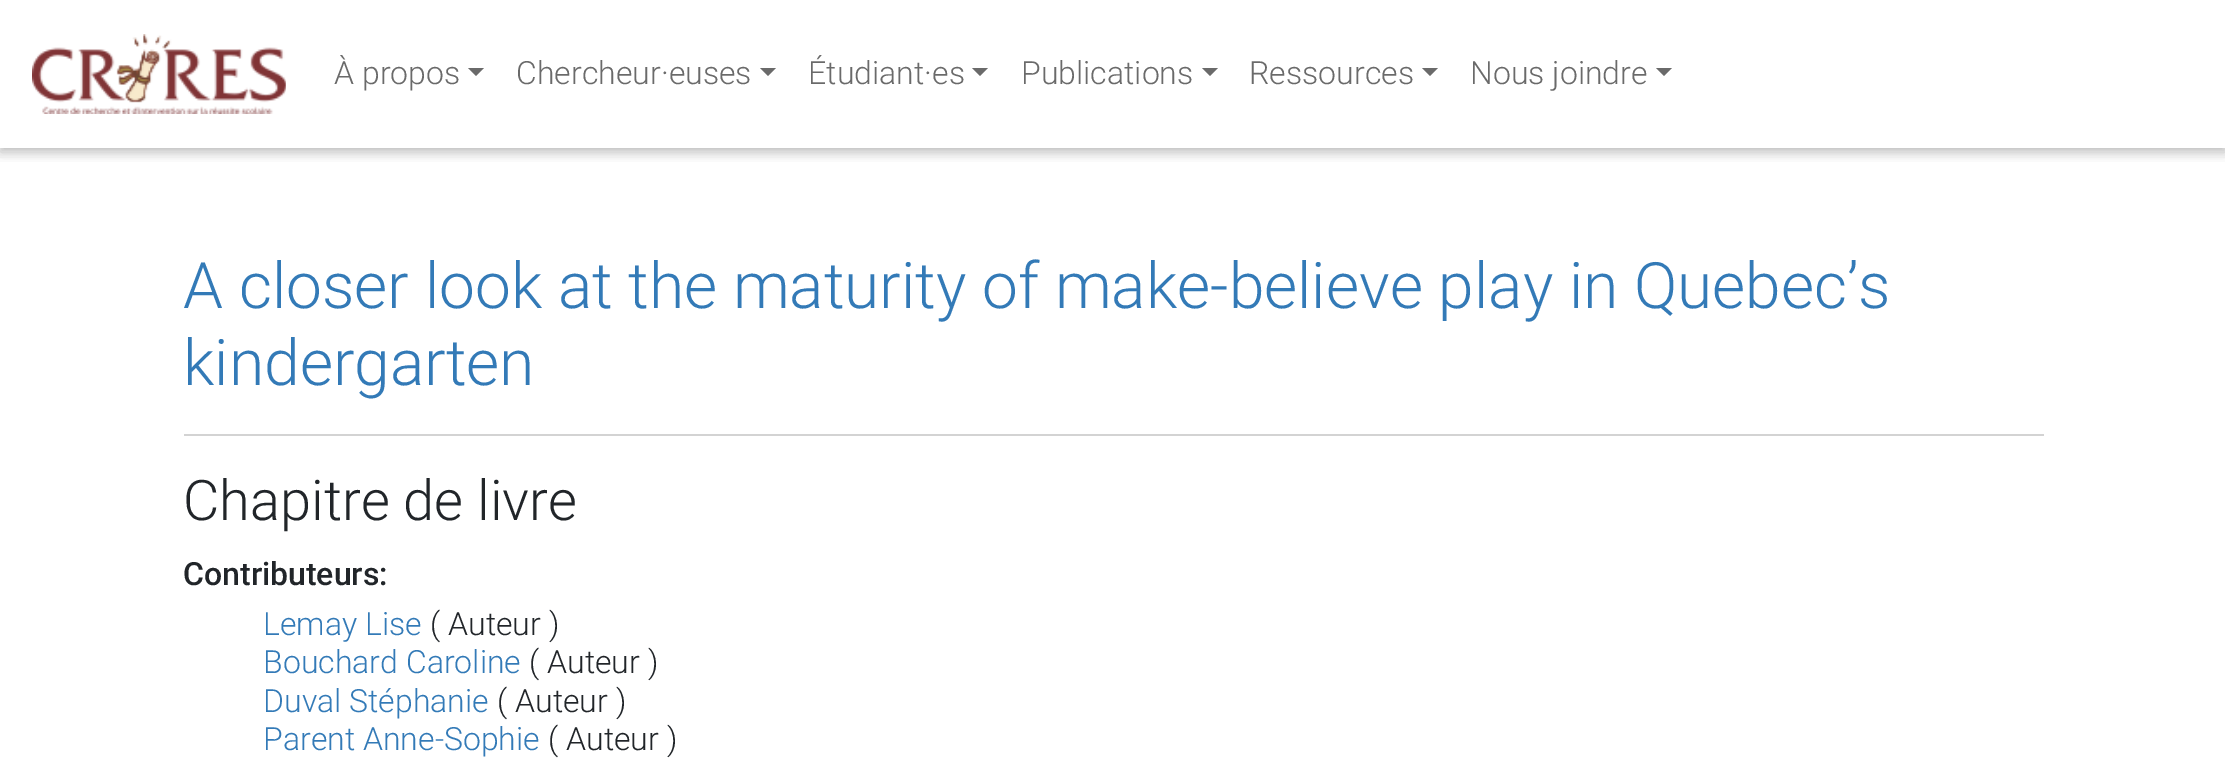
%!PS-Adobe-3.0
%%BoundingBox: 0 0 2225 767
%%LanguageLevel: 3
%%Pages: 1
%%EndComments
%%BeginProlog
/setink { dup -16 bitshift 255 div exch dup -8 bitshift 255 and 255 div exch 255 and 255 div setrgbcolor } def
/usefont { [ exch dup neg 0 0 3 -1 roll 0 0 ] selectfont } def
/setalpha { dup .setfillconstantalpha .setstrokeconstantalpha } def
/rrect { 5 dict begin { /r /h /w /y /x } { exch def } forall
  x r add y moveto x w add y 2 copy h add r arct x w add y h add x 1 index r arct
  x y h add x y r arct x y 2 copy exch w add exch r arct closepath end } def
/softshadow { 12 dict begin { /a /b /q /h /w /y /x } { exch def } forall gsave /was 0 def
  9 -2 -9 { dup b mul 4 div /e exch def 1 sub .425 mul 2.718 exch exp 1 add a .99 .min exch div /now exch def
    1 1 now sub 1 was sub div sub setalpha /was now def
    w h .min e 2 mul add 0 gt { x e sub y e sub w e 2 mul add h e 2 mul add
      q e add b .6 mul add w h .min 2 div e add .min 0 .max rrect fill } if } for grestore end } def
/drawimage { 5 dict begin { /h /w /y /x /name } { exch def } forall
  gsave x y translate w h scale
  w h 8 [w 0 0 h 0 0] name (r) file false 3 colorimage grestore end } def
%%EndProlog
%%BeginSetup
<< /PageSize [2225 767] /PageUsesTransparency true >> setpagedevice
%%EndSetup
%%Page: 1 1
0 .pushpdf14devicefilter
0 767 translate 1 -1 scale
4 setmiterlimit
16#FFFFFF setink
0 0 2225 767 rectfill
gsave
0 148 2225 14 rectclip
16#000000 setink
0 4 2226 148 0 10 0.12 softshadow
grestore
gsave
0 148 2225 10 rectclip
16#000000 setink
0 4 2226 148 0 5 0.16 softshadow
grestore
(img1.raw) 32 34 254 80 drawimage
/Roboto-Light 32 usefont
16#6A6A6A setink
334 84 moveto (À propos) show
468 68 moveto 484 68 lineto 476 76 lineto closepath fill
516 84 moveto (Chercheur·euses) show
760 68 moveto 776 68 lineto 768 76 lineto closepath fill
808 84 moveto (Étudiant·es) show
972 68 moveto 988 68 lineto 980 76 lineto closepath fill
1021 84 moveto (Publications) show
1202 68 moveto 1218 68 lineto 1210 76 lineto closepath fill
1249 84 moveto (Ressources) show
1422 68 moveto 1438 68 lineto 1430 76 lineto closepath fill
1470 84 moveto (Nous joindre) show
1656 68 moveto 1672 68 lineto 1664 76 lineto closepath fill
/Roboto-Light 64 usefont
16#337AB7 setink
183 308 moveto (A closer look at the maturity of make-believe play in Quebec’s) show
183 385 moveto (kindergarten) show
16#D3D3D3 setink
184 434 1860 2 rectfill
/Roboto-Light 56 usefont
16#212529 setink
183 520 moveto (Chapitre de livre) show
/Roboto-Medium 32 usefont
183 585 moveto (Contributeurs:) show
/Roboto-Light 32 usefont
16#337AB7 setink
263 635 moveto (Lemay Lise) show
16#212529 setink
430 635 moveto (\( Auteur \)) show
16#337AB7 setink
263 673 moveto (Bouchard Caroline) show
16#212529 setink
529 673 moveto (\( Auteur \)) show
16#337AB7 setink
263 712 moveto (Duval Stéphanie) show
16#212529 setink
497 712 moveto (\( Auteur \)) show
16#337AB7 setink
263 750 moveto (Parent Anne-Sophie) show
16#212529 setink
548 750 moveto (\( Auteur \)) show
.poppdf14devicefilter showpage
%%EOF
